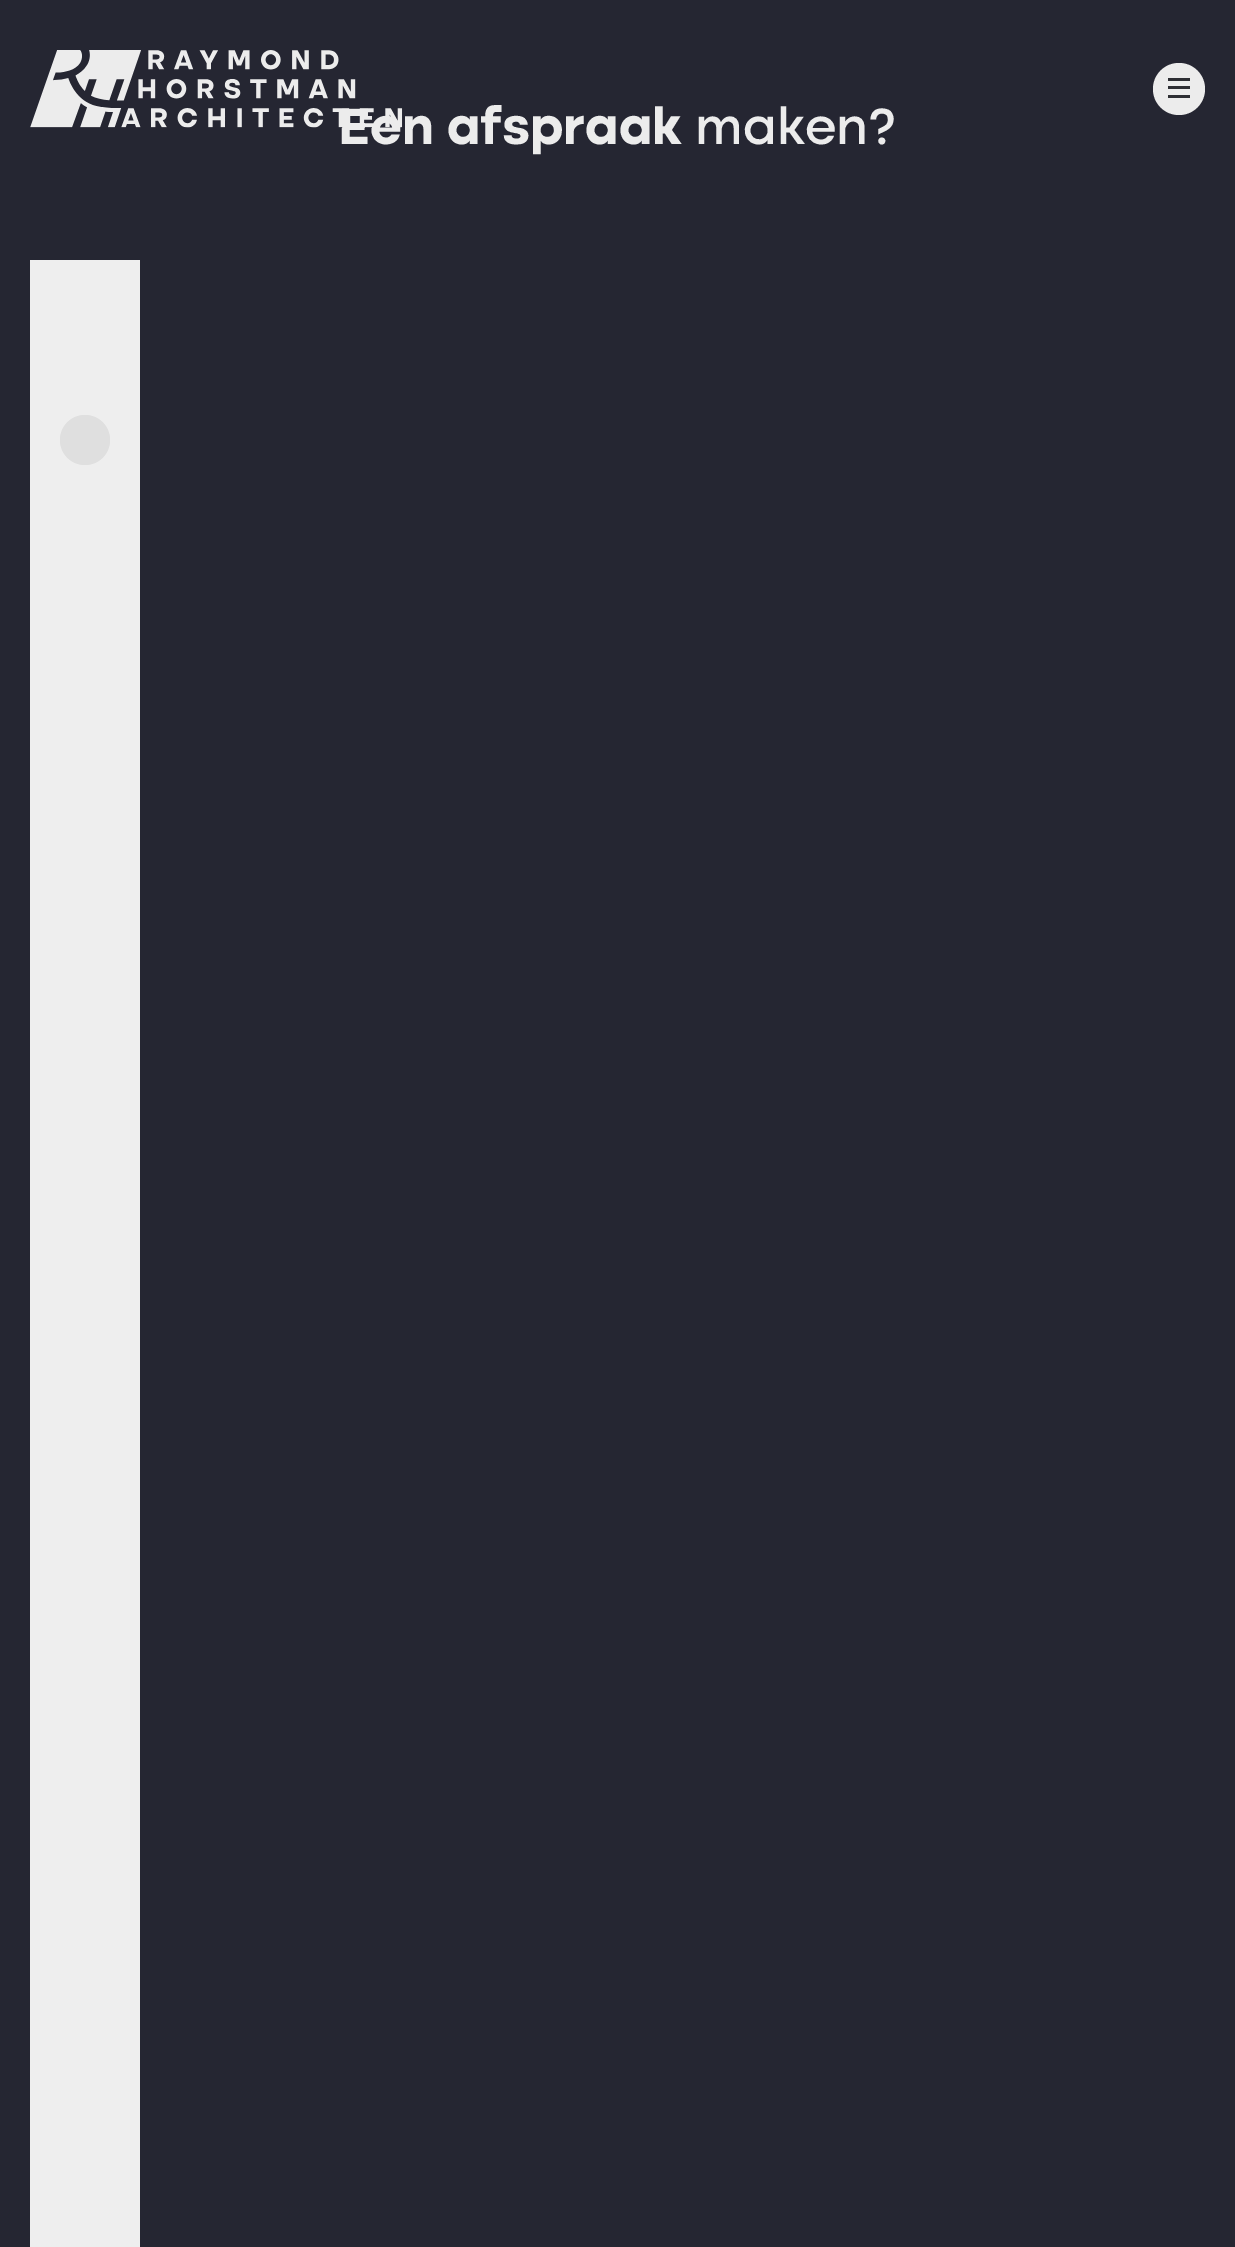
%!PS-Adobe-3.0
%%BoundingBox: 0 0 1235 2247
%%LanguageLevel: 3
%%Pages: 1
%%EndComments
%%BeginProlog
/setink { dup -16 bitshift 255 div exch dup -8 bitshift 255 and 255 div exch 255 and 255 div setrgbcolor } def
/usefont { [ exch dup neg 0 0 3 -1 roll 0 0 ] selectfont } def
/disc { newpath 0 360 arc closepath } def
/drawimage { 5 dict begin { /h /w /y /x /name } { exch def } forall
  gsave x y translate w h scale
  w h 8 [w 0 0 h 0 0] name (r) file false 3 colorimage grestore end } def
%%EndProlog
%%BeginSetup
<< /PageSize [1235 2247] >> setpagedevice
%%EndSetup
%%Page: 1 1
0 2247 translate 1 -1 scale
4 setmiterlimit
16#252632 setink
0 0 1235 2247 rectfill
/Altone-Bold 52.5 usefont
16#ECECEC setink
338 144 moveto (Een afspraak) show
(img1.raw) 30 50 373 78 drawimage
1179 89 26 disc fill
[
    [1168 86 22 3 16#2E2F34]
    [1168 78 22 3 16#2E2F34]
    [1168 95 22 3 16#2E2F34]
] { aload pop setink rectfill } forall
/Altone-Medium 52.5 usefont
16#ECECEC setink
695 144 moveto (maken?) show
16#EEEEEE setink
30 260 110 1987 rectfill
16#DFDFDF setink
85 440 25 disc fill
showpage
%%EOF
